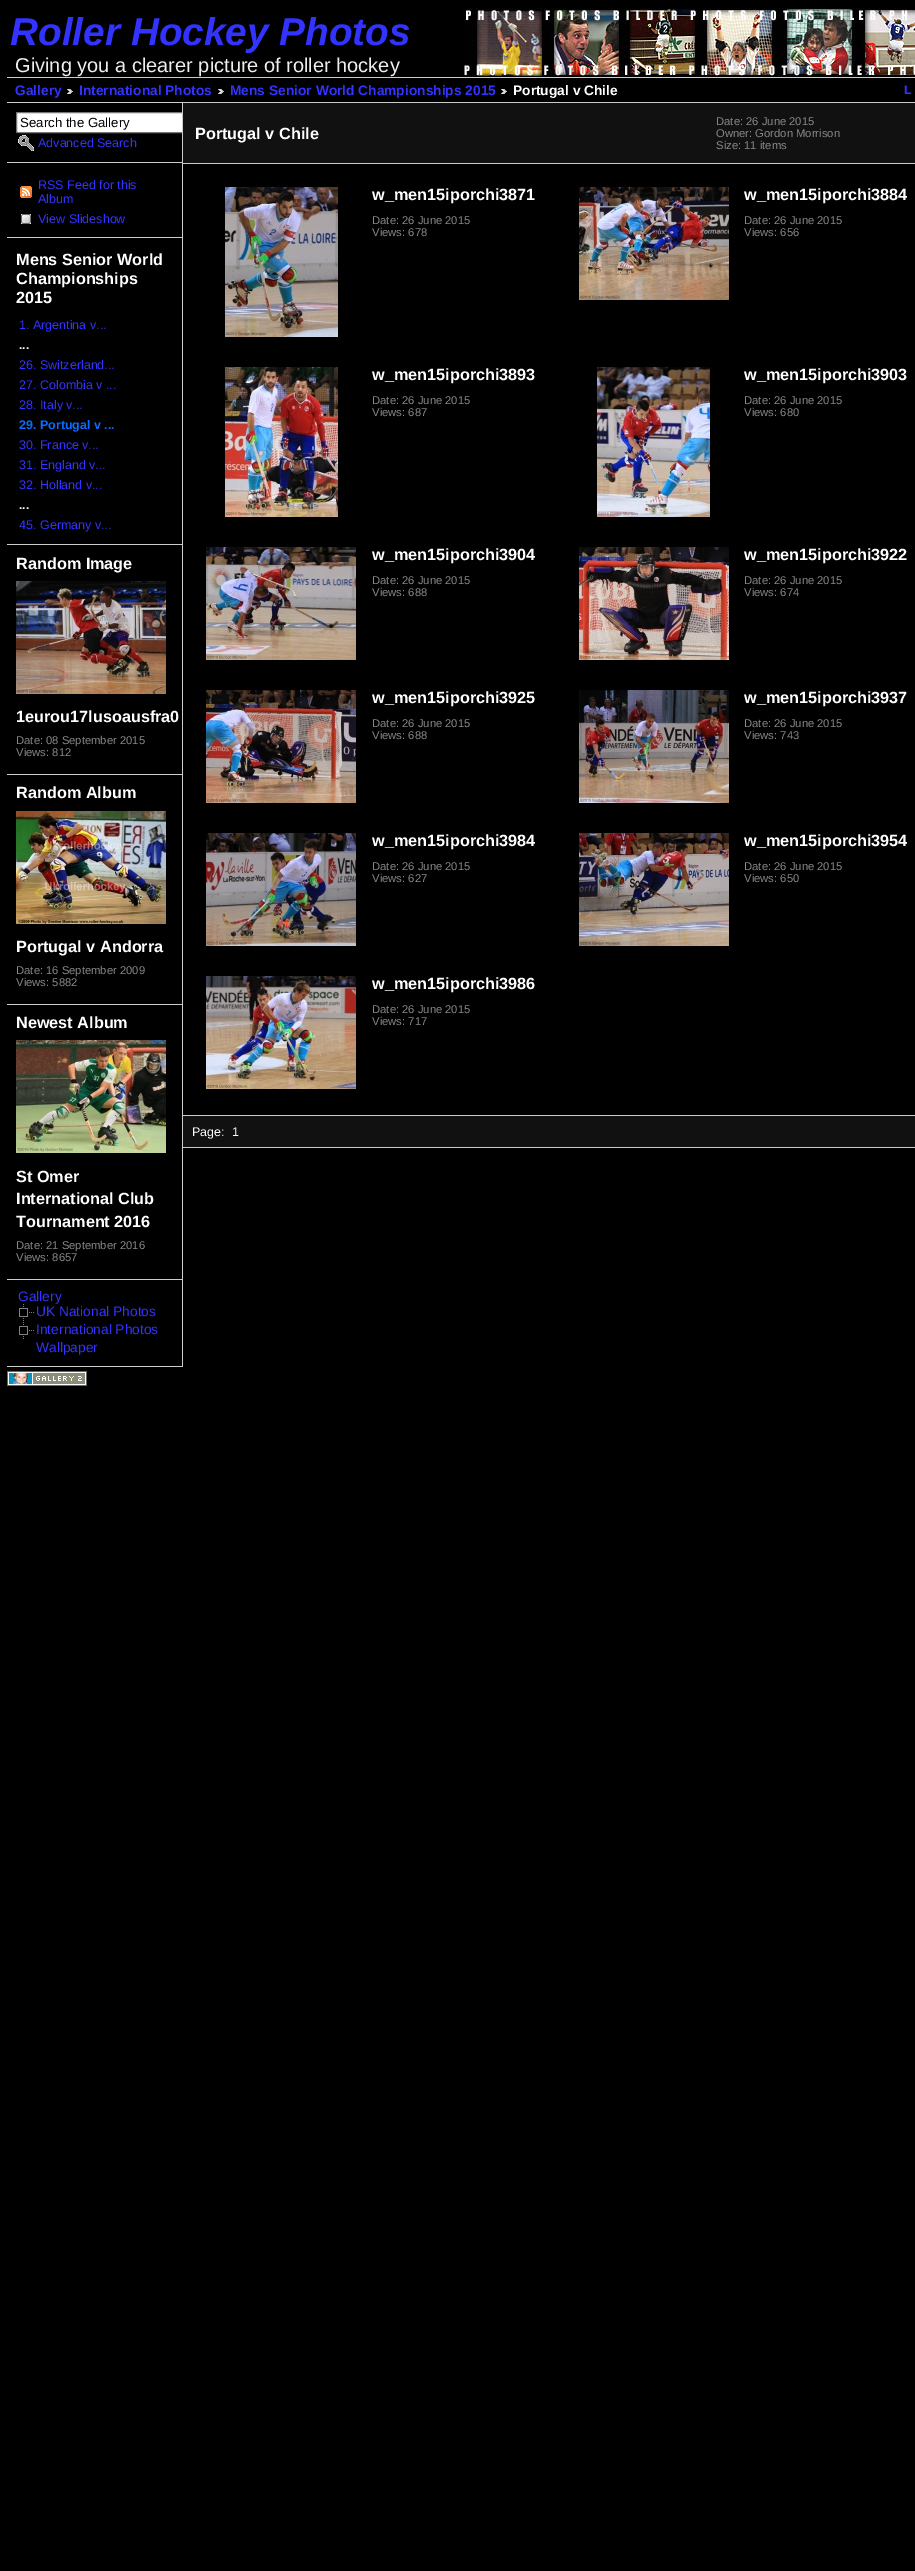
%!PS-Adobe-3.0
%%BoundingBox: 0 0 915 2571
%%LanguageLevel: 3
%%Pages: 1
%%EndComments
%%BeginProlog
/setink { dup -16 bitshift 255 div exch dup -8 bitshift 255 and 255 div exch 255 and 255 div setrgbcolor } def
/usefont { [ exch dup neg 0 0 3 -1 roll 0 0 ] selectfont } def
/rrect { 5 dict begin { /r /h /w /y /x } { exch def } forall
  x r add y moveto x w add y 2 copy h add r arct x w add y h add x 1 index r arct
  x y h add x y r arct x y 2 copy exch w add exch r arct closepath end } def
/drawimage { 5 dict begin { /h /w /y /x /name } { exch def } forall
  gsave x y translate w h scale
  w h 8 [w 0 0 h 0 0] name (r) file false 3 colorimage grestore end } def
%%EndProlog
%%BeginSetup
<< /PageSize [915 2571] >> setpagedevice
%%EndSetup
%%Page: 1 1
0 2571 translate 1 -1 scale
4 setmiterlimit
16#000000 setink
0 0 915 2571 rectfill
(img1.raw) 463 8 452 68 drawimage
/LiberationSans-BoldItalic 38.75 usefont
16#3333FF setink
10 45 moveto (Roller Hockey Photos) show
/LiberationSans-Regular 20 usefont
16#EEEEEE setink
15 72 moveto (Giving you a clearer picture of roller hockey) show
16#CCCCCC setink
7 77 908 1 rectfill
7 102 908 1 rectfill
/LiberationSans-Bold 13.75 usefont
16#3333FF setink
15 95 moveto (Gallery) show
(img2.raw) 67 89 6 5 drawimage
79 95 moveto (International Photos) show
(img2.raw) 218 89 6 5 drawimage
230 95 moveto (Mens Senior World Championships 2015) show
(img2.raw) 501 89 6 5 drawimage
16#FFFFFF setink
513 95 moveto (Portugal v Chile) show
/LiberationSans-Bold 12.5 usefont
16#3333FF setink
904 94 moveto (L) show
16#CCCCCC setink
182 103 1 1264 rectfill
7 162 175 1 rectfill
16#FFFFFF setink
18 112 moveto 182 112 lineto 182 133 lineto 18 133 lineto 17 133 16 132 16 131 curveto 16 114 lineto 16 113 17 112 18 112 curveto closepath fill
16#111111 setink
183 103 732 60 rectfill
gsave
7 103 175 1264 rectclip
16#767676 setink
16.5 112.5 168 20 1.5 rrect stroke
grestore
/LiberationSans-Regular 13.25 usefont
16#000000 setink
20 127 moveto (Search the Gallery) show
(img3.raw) 18 135 16 16 drawimage
/LiberationSans-Regular 12.5 usefont
16#3333FF setink
38 147 moveto (Advanced Search) show
16#CCCCCC setink
7 237 175 1 rectfill
(img4.raw) 20 186 12 12 drawimage
16#3333FF setink
38 189 moveto (RSS Feed for this) show
38 203 moveto (Album) show
(img5.raw) 21 214 10 10 drawimage
38 223 moveto (View Slideshow) show
16#CCCCCC setink
7 544 175 1 rectfill
/LiberationSans-Bold 16.25 usefont
16#FFFFFF setink
[
    [(Mens Senior World) 16 265]
    [(Championships) 16 284]
    [(2015) 16 303]
] { aload pop moveto show } forall
/LiberationSans-Regular 12.5 usefont
16#3333FF setink
19 329 moveto (1. Argentina v...) show
/LiberationSans-Bold 12.5 usefont
16#FFFFFF setink
19 349 moveto (...) show
/LiberationSans-Regular 12.5 usefont
16#3333FF setink
[
    [(26. Switzerland...) 19 369]
    [(27. Colombia v ...) 19 389]
    [(28. Italy v...) 19 409]
] { aload pop moveto show } forall
/LiberationSans-Bold 12.5 usefont
16#0B6CFF setink
19 429 moveto (29. Portugal v ...) show
/LiberationSans-Regular 12.5 usefont
16#3333FF setink
[
    [(30. France v...) 19 449]
    [(31. England v...) 19 469]
    [(32. Holland v...) 19 489]
] { aload pop moveto show } forall
/LiberationSans-Bold 12.5 usefont
16#FFFFFF setink
19 509 moveto (...) show
/LiberationSans-Regular 12.5 usefont
16#3333FF setink
19 529 moveto (45. Germany v...) show
16#CCCCCC setink
7 774 175 1 rectfill
/LiberationSans-Bold 16.25 usefont
16#FFFFFF setink
16 569 moveto (Random Image) show
(img6.raw) 16 581 150 113 drawimage
16 722 moveto (1eurou17lusoausfra0) show
/LiberationSans-Regular 11.25 usefont
16#888888 setink
16 744 moveto (Date: 08 September 2015) show
16 756 moveto (Views: 812) show
16#CCCCCC setink
7 1004 175 1 rectfill
/LiberationSans-Bold 16.25 usefont
16#FFFFFF setink
16 798 moveto (Random Album) show
(img7.raw) 16 811 150 113 drawimage
16 952 moveto (Portugal v Andorra) show
/LiberationSans-Regular 11.25 usefont
16#888888 setink
16 974 moveto (Date: 16 September 2009) show
16 986 moveto (Views: 5882) show
16#CCCCCC setink
7 1279 175 1 rectfill
/LiberationSans-Bold 16.25 usefont
16#FFFFFF setink
16 1028 moveto (Newest Album) show
(img8.raw) 16 1040 150 113 drawimage
[
    [(St Omer) 16 1182]
    [(International Club) 16 1204]
    [(Tournament 2016) 16 1227]
] { aload pop moveto show } forall
/LiberationSans-Regular 11.25 usefont
16#888888 setink
16 1249 moveto (Date: 21 September 2016) show
16 1261 moveto (Views: 8657) show
16#CCCCCC setink
7 1366 175 1 rectfill
/LiberationSans-Regular 13.75 usefont
16#3333FF setink
18 1301 moveto (Gallery) show
(img9.raw) 19 1304 15 17 drawimage
36 1316 moveto (UK National Photos) show
(img9.raw) 19 1322 15 17 drawimage
36 1334 moveto (International Photos) show
36 1352 moveto (Wallpaper) show
16#CCCCCC setink
183 163 732 1 rectfill
/LiberationSans-Bold 16.25 usefont
16#FFFFFF setink
195 139 moveto (Portugal v Chile) show
/LiberationSans-Regular 11.25 usefont
16#888888 setink
[
    [(Date: 26 June 2015) 716 125]
    [(Owner: Gordon Morrison) 716 137]
    [(Size: 11 items) 716 149]
] { aload pop moveto show } forall
16#CCCCCC setink
183 1115 732 1 rectfill
(img10.raw) 225 187 113 150 drawimage
/LiberationSans-Bold 16.25 usefont
16#FFFFFF setink
372 200 moveto (w_men15iporchi3871) show
/LiberationSans-Regular 11.25 usefont
16#888888 setink
372 224 moveto (Date: 26 June 2015) show
372 236 moveto (Views: 678) show
(img11.raw) 579 187 150 113 drawimage
/LiberationSans-Bold 16.25 usefont
16#FFFFFF setink
744 200 moveto (w_men15iporchi3884) show
/LiberationSans-Regular 11.25 usefont
16#888888 setink
744 224 moveto (Date: 26 June 2015) show
744 236 moveto (Views: 656) show
(img12.raw) 225 367 113 150 drawimage
/LiberationSans-Bold 16.25 usefont
16#FFFFFF setink
372 380 moveto (w_men15iporchi3893) show
/LiberationSans-Regular 11.25 usefont
16#888888 setink
372 404 moveto (Date: 26 June 2015) show
372 416 moveto (Views: 687) show
(img13.raw) 597 367 113 150 drawimage
/LiberationSans-Bold 16.25 usefont
16#FFFFFF setink
744 380 moveto (w_men15iporchi3903) show
/LiberationSans-Regular 11.25 usefont
16#888888 setink
744 404 moveto (Date: 26 June 2015) show
744 416 moveto (Views: 680) show
(img14.raw) 206 547 150 113 drawimage
/LiberationSans-Bold 16.25 usefont
16#FFFFFF setink
372 560 moveto (w_men15iporchi3904) show
/LiberationSans-Regular 11.25 usefont
16#888888 setink
372 584 moveto (Date: 26 June 2015) show
372 596 moveto (Views: 688) show
(img15.raw) 579 547 150 113 drawimage
/LiberationSans-Bold 16.25 usefont
16#FFFFFF setink
744 560 moveto (w_men15iporchi3922) show
/LiberationSans-Regular 11.25 usefont
16#888888 setink
744 584 moveto (Date: 26 June 2015) show
744 596 moveto (Views: 674) show
(img16.raw) 206 690 150 113 drawimage
/LiberationSans-Bold 16.25 usefont
16#FFFFFF setink
372 703 moveto (w_men15iporchi3925) show
/LiberationSans-Regular 11.25 usefont
16#888888 setink
372 727 moveto (Date: 26 June 2015) show
372 739 moveto (Views: 688) show
(img17.raw) 579 690 150 113 drawimage
/LiberationSans-Bold 16.25 usefont
16#FFFFFF setink
744 703 moveto (w_men15iporchi3937) show
/LiberationSans-Regular 11.25 usefont
16#888888 setink
744 727 moveto (Date: 26 June 2015) show
744 739 moveto (Views: 743) show
(img18.raw) 206 833 150 113 drawimage
/LiberationSans-Bold 16.25 usefont
16#FFFFFF setink
372 846 moveto (w_men15iporchi3984) show
/LiberationSans-Regular 11.25 usefont
16#888888 setink
372 870 moveto (Date: 26 June 2015) show
372 882 moveto (Views: 627) show
(img19.raw) 579 833 150 113 drawimage
/LiberationSans-Bold 16.25 usefont
16#FFFFFF setink
744 846 moveto (w_men15iporchi3954) show
/LiberationSans-Regular 11.25 usefont
16#888888 setink
744 870 moveto (Date: 26 June 2015) show
744 882 moveto (Views: 650) show
(img20.raw) 206 976 150 113 drawimage
/LiberationSans-Bold 16.25 usefont
16#FFFFFF setink
372 989 moveto (w_men15iporchi3986) show
/LiberationSans-Regular 11.25 usefont
16#888888 setink
372 1013 moveto (Date: 26 June 2015) show
372 1025 moveto (Views: 717) show
16#111111 setink
183 1116 732 31 rectfill
16#CCCCCC setink
183 1147 732 1 rectfill
/LiberationSans-Regular 12.5 usefont
16#FFFFFF setink
192 1136 moveto (Page:) show
232 1136 moveto (1) show
(img21.raw) 7 1371 80 15 drawimage
showpage
%%EOF
